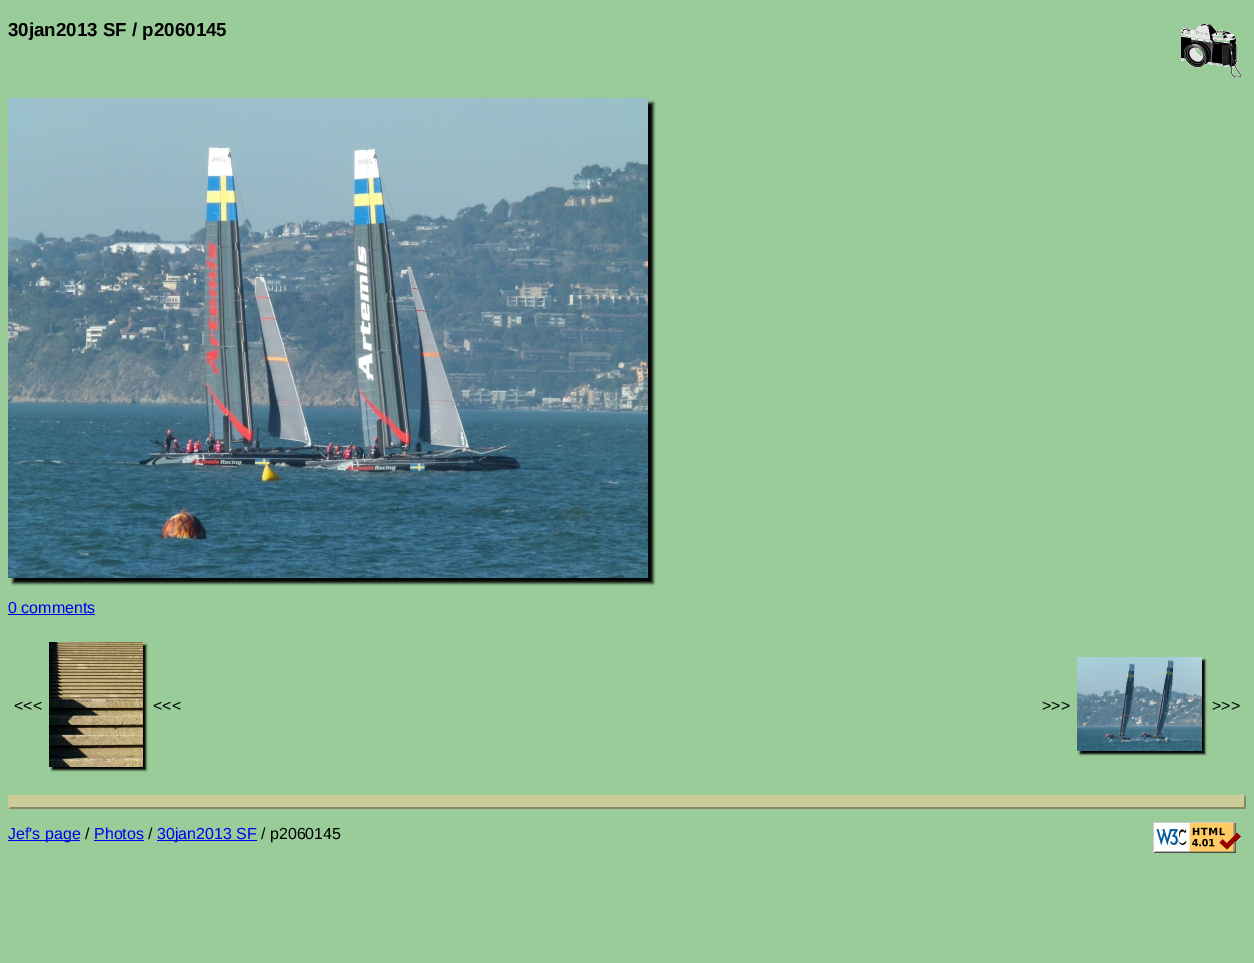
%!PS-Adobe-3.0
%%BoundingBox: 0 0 1254 963
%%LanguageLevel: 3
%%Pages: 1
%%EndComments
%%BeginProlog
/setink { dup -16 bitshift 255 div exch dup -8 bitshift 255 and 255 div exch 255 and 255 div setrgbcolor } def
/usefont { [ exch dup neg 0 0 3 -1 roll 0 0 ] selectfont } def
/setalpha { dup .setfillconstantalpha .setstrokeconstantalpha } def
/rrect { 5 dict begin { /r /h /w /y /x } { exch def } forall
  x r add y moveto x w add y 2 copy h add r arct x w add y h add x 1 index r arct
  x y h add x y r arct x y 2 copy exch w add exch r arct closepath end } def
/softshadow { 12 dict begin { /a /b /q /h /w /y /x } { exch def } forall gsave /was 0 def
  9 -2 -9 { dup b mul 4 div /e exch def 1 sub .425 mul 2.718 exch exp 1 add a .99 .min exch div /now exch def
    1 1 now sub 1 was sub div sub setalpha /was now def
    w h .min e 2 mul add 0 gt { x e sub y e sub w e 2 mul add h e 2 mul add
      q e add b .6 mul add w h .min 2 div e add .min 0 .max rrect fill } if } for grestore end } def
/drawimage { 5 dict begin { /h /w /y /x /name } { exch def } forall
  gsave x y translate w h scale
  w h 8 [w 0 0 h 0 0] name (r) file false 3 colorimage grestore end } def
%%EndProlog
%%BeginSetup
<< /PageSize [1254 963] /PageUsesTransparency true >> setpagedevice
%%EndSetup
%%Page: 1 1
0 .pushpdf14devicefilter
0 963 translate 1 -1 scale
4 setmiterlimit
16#99CC99 setink
0 0 1254 963 rectfill
/LiberationSans-Bold 18.75 usefont
16#000000 setink
8 36 moveto (30jan2013 SF / p2060145) show
(img1.raw) 1181 24 60 53 drawimage
13 103 640 480 0 1.5 1 softshadow
(img2.raw) 8 98 640 480 drawimage
/LiberationSans-Regular 16 usefont
16#0000EE setink
8 613 moveto (0 comments) show
8 614 87 1 rectfill
16#000000 setink
14 711 moveto (<<<) show
52 645 94 125 0 1 1 softshadow
(img3.raw) 49 642 94 125 drawimage
153 711 moveto (<<<) show
1042 711 moveto (>>>) show
1080 660 125 94 0 1 1 softshadow
(img4.raw) 1077 657 125 94 drawimage
1212 711 moveto (>>>) show
16#CCCC99 setink
8 795 1238 14 rectfill
16#888866 setink
1246 795 moveto 1246 809 lineto 1244 807 lineto 1244 797 lineto closepath fill
1246 809 moveto 8 809 lineto 10 807 lineto 1244 807 lineto closepath fill
16#CCCC99 setink
8 809 moveto 8 795 lineto 10 797 lineto 10 807 lineto closepath fill
16#0000EE setink
8 840 72 1 rectfill
8 839 moveto (Jef's page) show
16#000000 setink
85 839 moveto (/) show
16#0000EE setink
94 839 moveto (Photos) show
94 840 50 1 rectfill
16#000000 setink
148 839 moveto (/) show
16#0000EE setink
157 840 100 1 rectfill
157 839 moveto (30jan2013 SF) show
16#000000 setink
261 839 moveto (/ p2060145) show
(img5.raw) 1153 822 88 31 drawimage
.poppdf14devicefilter showpage
%%EOF
